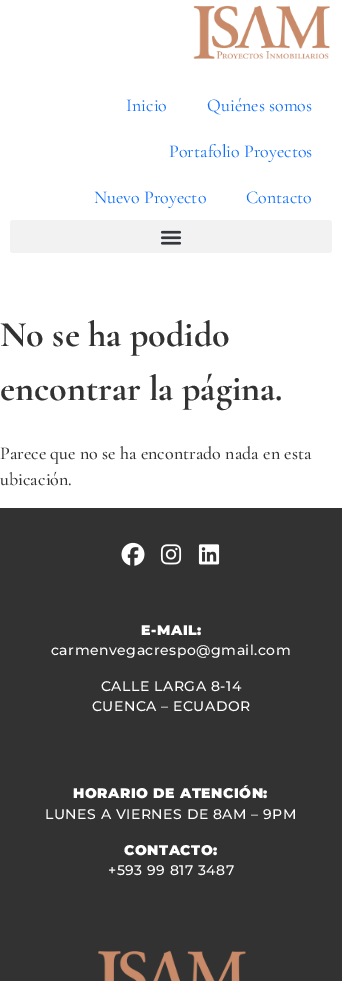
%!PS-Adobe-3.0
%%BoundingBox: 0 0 342 981
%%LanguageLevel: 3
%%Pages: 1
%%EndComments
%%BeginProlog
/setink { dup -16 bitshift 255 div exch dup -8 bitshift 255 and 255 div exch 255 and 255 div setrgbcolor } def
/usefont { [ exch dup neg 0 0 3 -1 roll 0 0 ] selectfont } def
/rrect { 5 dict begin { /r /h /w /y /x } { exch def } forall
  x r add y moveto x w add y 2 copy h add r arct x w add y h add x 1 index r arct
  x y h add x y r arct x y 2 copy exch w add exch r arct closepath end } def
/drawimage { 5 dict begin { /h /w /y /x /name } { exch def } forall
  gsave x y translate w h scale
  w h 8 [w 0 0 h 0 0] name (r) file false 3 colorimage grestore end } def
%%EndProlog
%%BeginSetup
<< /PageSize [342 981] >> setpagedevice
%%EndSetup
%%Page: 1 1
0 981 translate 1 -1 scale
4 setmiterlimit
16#FFFFFF setink
0 0 342 981 rectfill
(img1.raw) 193 5 137 54 drawimage
/CormorantGaramond-Regular 18 usefont
16#0D6EFD setink
[
    [(Inicio) 126 111]
    [(Quiénes somos) 207 111]
    [(Portafolio Proyectos) 169 157]
    [(Nuevo Proyecto) 94 203]
    [(Contacto) 246 203]
] { aload pop moveto show } forall
16#F2F2F2 setink
10 220 322 33 3 rrect fill
(img2.raw) 160 230 22 15 drawimage
/CormorantGaramond-Bold 36 usefont
16#323232 setink
0 346 moveto (No se ha podido) show
0 400 moveto (encontrar la página.) show
/CormorantGaramond-Medium 18 usefont
0 459 moveto (Parece que no se ha encontrado nada en esta) show
0 485 moveto (ubicación.) show
0 508 342 473 rectfill
(img3.raw) 121 542 24 24 drawimage
(img4.raw) 160 544 22 21 drawimage
(img5.raw) 198 544 22 21 drawimage
/Montserrat-Black 14 usefont
16#FFFFFF setink
141 635 moveto 0.5 0 (E-MAIL:) ashow
/Montserrat-Medium 14 usefont
51 655 moveto 0.5 0 (carmenvegacrespo@gmail.com) ashow
101 691 moveto 0.5 0 (CALLE LARGA 8-14) ashow
92 711 moveto 0.5 0 (CUENCA – ECUADOR) ashow
/Montserrat-Black 14 usefont
73 798 moveto 0.5 0 (HORARIO DE ATENCIÓN:) ashow
/Montserrat-Medium 14 usefont
45 819 moveto 0.5 0 (LUNES A VIERNES DE 8AM – 9PM) ashow
/Montserrat-Black 14 usefont
124 855 moveto 0.5 0 (CONTACTO:) ashow
/Montserrat-Medium 14 usefont
108 875 moveto 0.5 0 (+593 99 817 3487) ashow
(img6.raw) 98 950 148 31 drawimage
showpage
%%EOF
